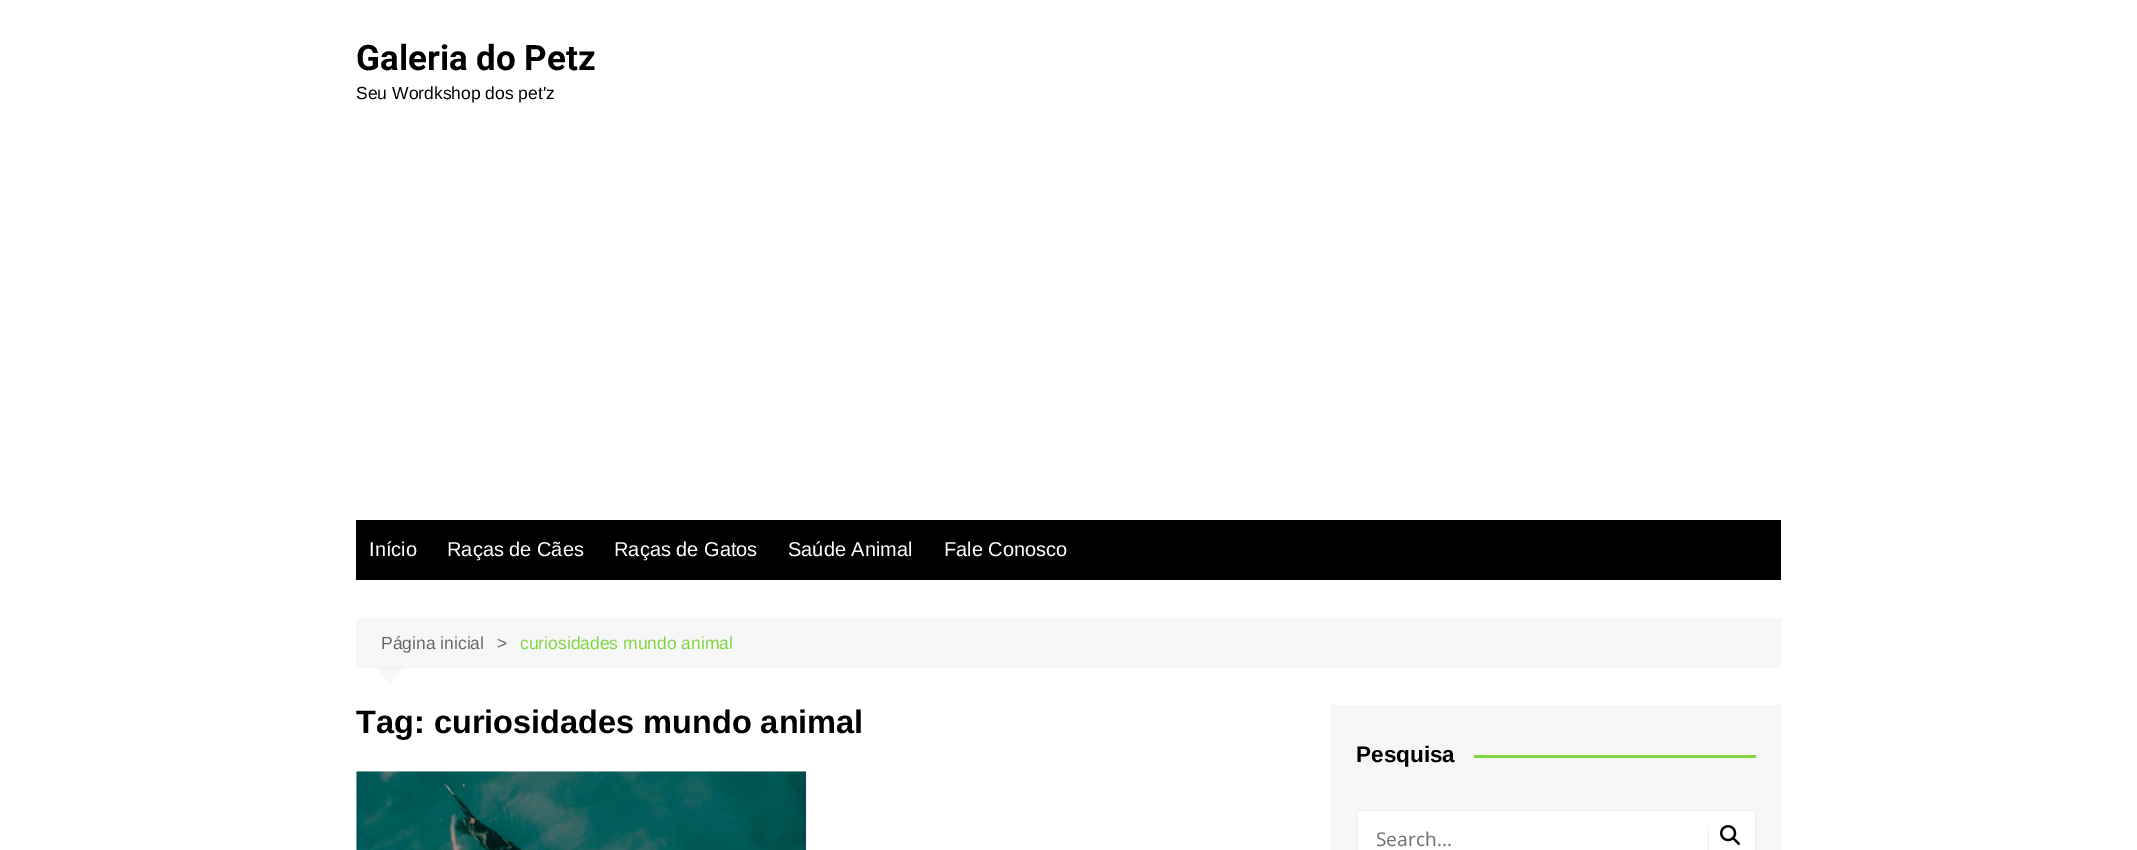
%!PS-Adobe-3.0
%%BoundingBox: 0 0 2137 850
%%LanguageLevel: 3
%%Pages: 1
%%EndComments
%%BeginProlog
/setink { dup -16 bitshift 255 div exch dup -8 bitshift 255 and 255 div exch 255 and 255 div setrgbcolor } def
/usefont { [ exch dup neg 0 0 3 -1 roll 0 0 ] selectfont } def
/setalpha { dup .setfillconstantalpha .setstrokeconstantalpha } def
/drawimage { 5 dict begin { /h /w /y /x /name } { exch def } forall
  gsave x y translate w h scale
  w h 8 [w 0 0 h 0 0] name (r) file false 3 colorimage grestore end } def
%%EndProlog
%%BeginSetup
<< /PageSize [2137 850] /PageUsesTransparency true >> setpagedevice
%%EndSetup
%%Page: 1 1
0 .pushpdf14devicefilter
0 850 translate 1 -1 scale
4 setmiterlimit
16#FFFFFF setink
0 0 2137 850 rectfill
/Roboto-Bold 35 usefont
16#010101 setink
356 70 moveto (Galeria do Petz) show
/LiberationSans-Regular 17.5 usefont
356 99 moveto (Seu Wordkshop dos pet'z) show
16#000000 setink
356 520 1425 60 rectfill
/LiberationSans-Regular 20 usefont
16#FFFFFF setink
[
    [(Início) 369 556]
    [(Raças de Cães) 447 556]
    [(Raças de Gatos) 614 556]
    [(Saúde Animal) 788 556]
    [(Fale Conosco) 944 556]
] { aload pop moveto show } forall
16#F7F7F7 setink
356 618 1425 50 rectfill
/LiberationSans-Regular 17.5 usefont
16#666666 setink
381 649 moveto (Página inicial) show
497 649 moveto (>) show
16#81D742 setink
520 649 moveto (curiosidades mundo animal) show
0.03 setalpha
16#000000 setink
375 667 moveto 405 667 lineto 390 683 lineto closepath fill
/LiberationSans-Bold 32.5 usefont
1 setalpha
16#010101 setink
356 733 moveto (Tag: curiosidades mundo animal) show
(img1.raw) 356 771 451 79 drawimage
16#F7F7F7 setink
1331 705 450 145 rectfill
/LiberationSans-Bold 22.5 usefont
16#010101 setink
1356 762 moveto (Pesquisa) show
16#81D742 setink
1474 755 282 3 rectfill
16#FFFFFF setink
1356.5 810.5 moveto 1755.5 810.5 lineto 1755.5 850.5 lineto 1356.5 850.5 lineto closepath gsave fill grestore
16#EEEEEE setink
stroke
/NotoSans-Regular 19 usefont
16#757575 setink
1376 846 moveto (Search...) show
16#EEEEEE setink
1708 826 1 24 rectfill
(img2.raw) 1720 825 20 20 drawimage
.poppdf14devicefilter showpage
%%EOF
